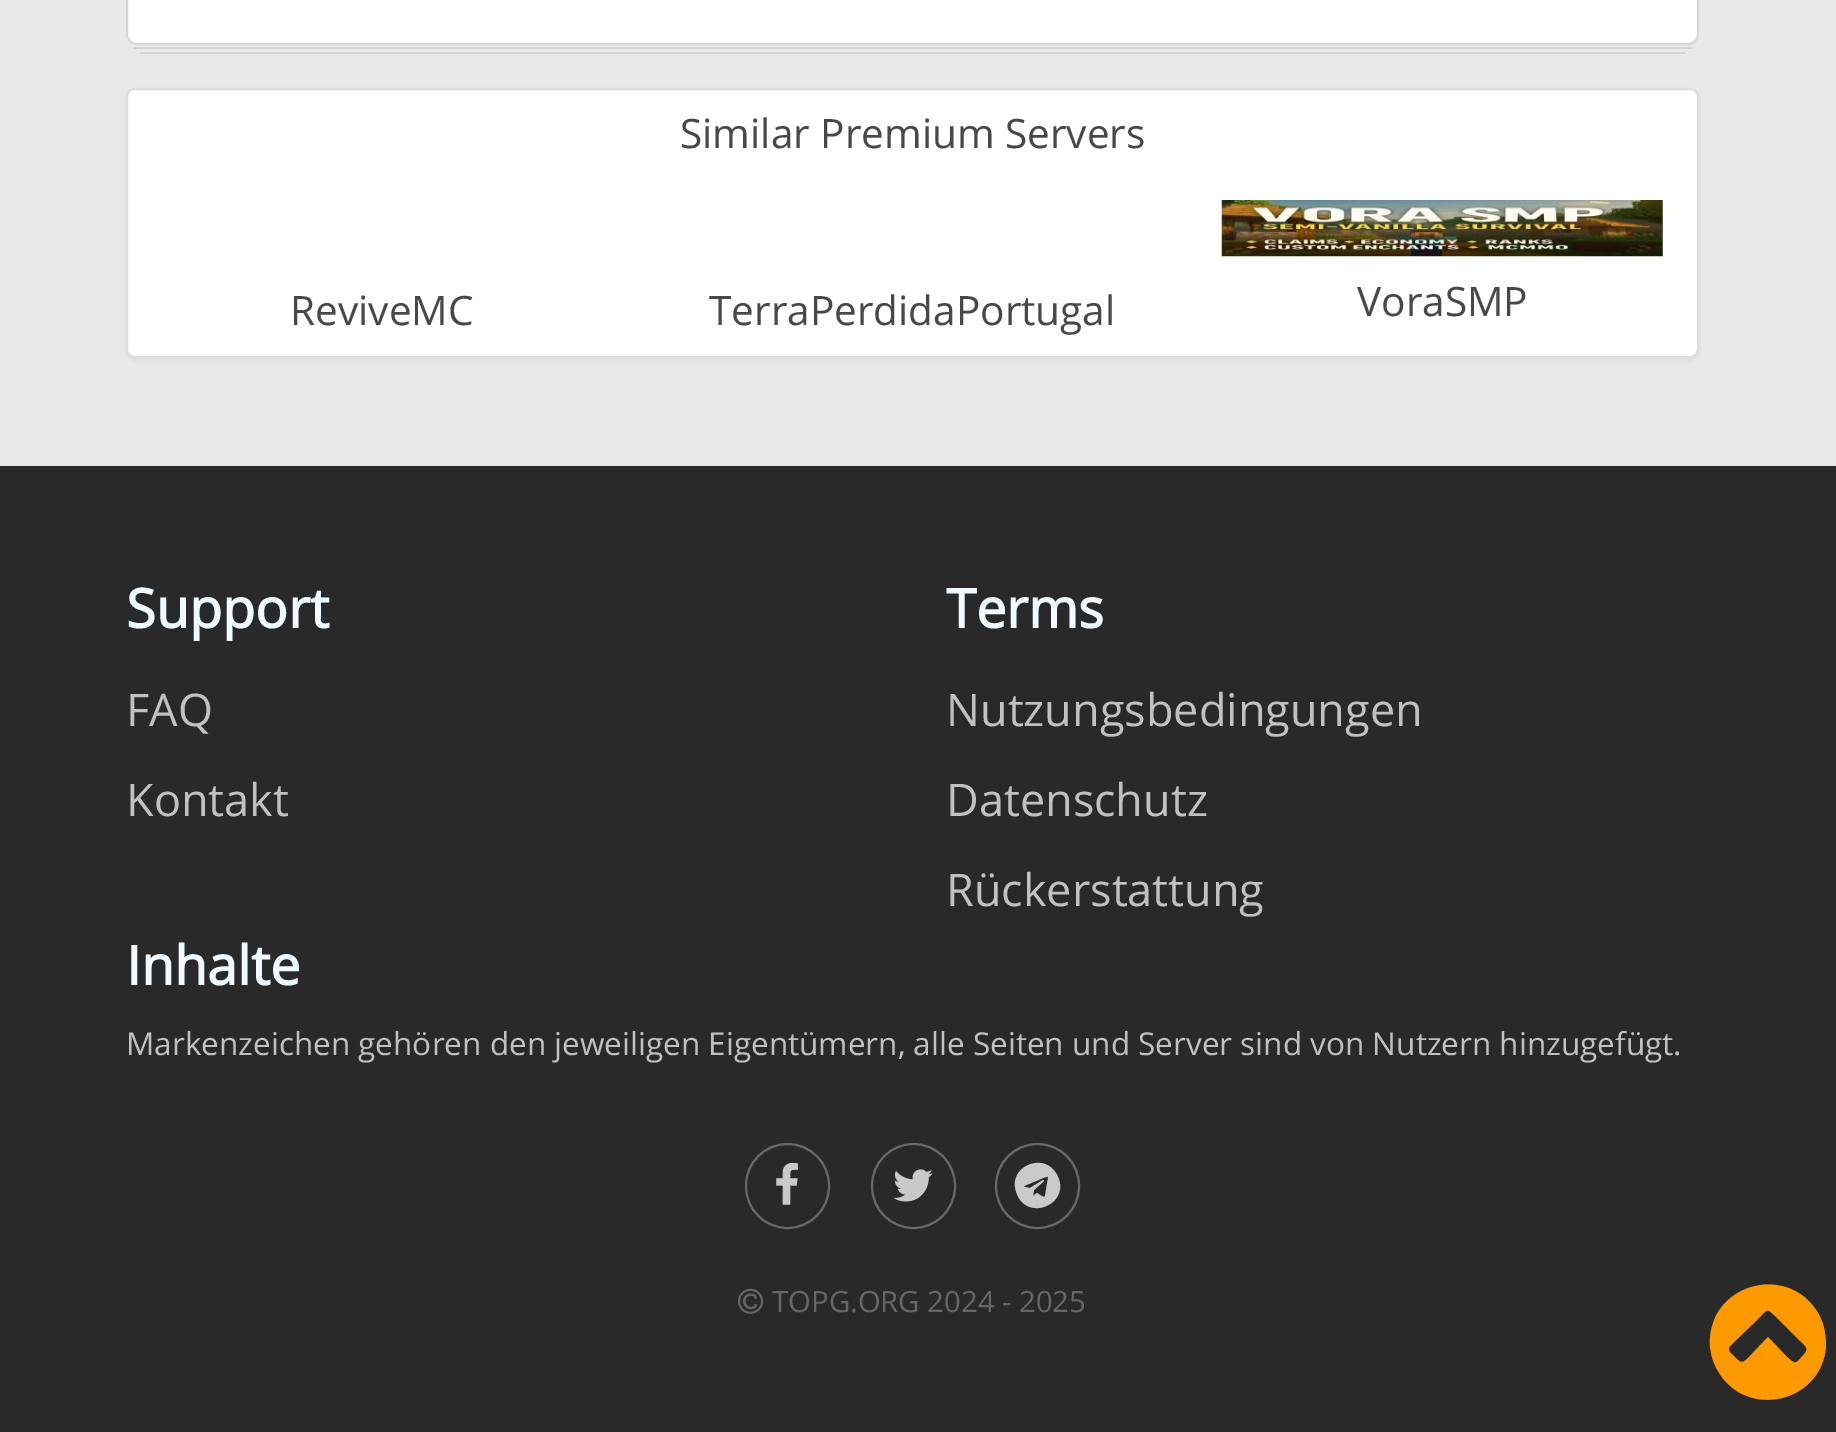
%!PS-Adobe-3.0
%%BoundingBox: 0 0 1836 1432
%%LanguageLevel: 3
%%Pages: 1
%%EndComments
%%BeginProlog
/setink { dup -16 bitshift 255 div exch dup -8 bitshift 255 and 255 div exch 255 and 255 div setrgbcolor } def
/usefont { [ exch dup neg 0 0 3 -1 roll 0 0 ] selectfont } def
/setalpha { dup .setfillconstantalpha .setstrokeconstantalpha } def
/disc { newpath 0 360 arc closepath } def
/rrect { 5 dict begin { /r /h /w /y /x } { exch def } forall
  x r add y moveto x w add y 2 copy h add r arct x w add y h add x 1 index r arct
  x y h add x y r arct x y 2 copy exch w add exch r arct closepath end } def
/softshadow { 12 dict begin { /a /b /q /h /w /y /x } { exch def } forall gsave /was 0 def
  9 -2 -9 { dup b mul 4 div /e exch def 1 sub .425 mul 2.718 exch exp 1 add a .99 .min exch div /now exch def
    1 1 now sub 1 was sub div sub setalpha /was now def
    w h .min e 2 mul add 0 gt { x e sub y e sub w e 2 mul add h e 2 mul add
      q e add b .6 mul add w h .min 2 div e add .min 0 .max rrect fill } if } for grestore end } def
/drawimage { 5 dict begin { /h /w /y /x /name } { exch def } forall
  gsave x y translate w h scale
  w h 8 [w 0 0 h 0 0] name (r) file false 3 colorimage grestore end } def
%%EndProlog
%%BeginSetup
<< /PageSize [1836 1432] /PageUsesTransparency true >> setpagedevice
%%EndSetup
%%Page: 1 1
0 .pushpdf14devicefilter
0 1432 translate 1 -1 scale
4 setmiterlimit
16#E9E9E7 setink
0 0 1836 1432 rectfill
16#FFFFFF setink
127 -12 1571 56 10 rrect gsave fill grestore
16#D5D5D5 setink
2 setlinewidth
stroke
16#D3D3D3 setink
135 47 1557 2 rectfill
134 48 1 disc fill
142 52 1543 2 rectfill
141 53 1 disc fill
16#000000 setink
126 90 1573 270 9 2 0.05 softshadow
16#FFFFFF setink
127 89 1571 268 8 rrect gsave fill grestore
16#DDDDDD setink
stroke
/OpenSans-Regular 40.5 usefont
16#484848 setink
[
    [(Similar Premium Servers) 680 148]
    [(ReviveMC) 290 325]
    [(TerraPerdidaPortugal) 709 325]
] { aload pop moveto show } forall
(img1.raw) 1221 200 442 57 drawimage
1357 316 moveto (VoraSMP) show
16#292929 setink
0 466 1836 966 rectfill
/OpenSans-Bold 54 usefont
16#F0F9FF setink
126 628 moveto (Support) show
/OpenSans-Regular 45 usefont
16#C1C1C1 setink
126 726 moveto (FAQ) show
126 816 moveto (Kontakt) show
/OpenSans-Bold 54 usefont
16#F0F9FF setink
946 628 moveto (Terms) show
/OpenSans-Regular 45 usefont
16#C1C1C1 setink
[
    [(Nutzungsbedingungen) 946 726]
    [(Datenschutz) 946 816]
    [(Rückerstattung) 946 906]
] { aload pop moveto show } forall
/OpenSans-Bold 54 usefont
16#F0F9FF setink
126 985 moveto (Inhalte) show
/OpenSans-Regular 31.5 usefont
16#C1C1C1 setink
126 1055 moveto (Markenzeichen gehören den jeweiligen Eigentümern, alle Seiten und Server sind von Nutzern hinzugefügt.) show
16#696969 setink
746 1144 83 84 41.5 rrect stroke
(img2.raw) 776 1162 22 43 drawimage
872 1144 83 84 41.5 rrect stroke
(img3.raw) 893 1169 40 33 drawimage
996 1144 83 84 41.5 rrect stroke
16#CACACA setink
1045 1196 moveto 1048 1178 lineto 1049 1175 1044 1178 1043 1178 curveto 1024 1186 lineto 1023 1187 1029 1188 1030 1188 curveto 1043 1180 lineto 1044 1180 1044 1180 1044 1181 curveto 1034 1190 lineto 1033 1196 lineto 1037 1193 lineto 1038 1193 1044 1199 1045 1196 curveto closepath 1058 1177 moveto 1070 1204 1028 1222 1017 1194 curveto 1005 1167 1046 1149 1058 1177 curveto closepath fill
(img4.raw) 738 1288 25 26 drawimage
/OpenSans-Regular 29.25 usefont
16#656769 setink
772 1312 moveto (TOPG.ORG 2024 - 2025) show
16#FF9900 setink
1798 1361 moveto 1811 1347 1809 1350 1794 1335 curveto 1777 1318 lineto 1767 1308 1768 1308 1759 1318 curveto 1730 1346 lineto 1727 1350 1730 1353 1733 1355 curveto 1741 1363 1741 1365 1749 1357 curveto 1768 1337 lineto 1787 1357 lineto 1790 1359 1794 1365 1798 1361 curveto closepath 1818 1313 moveto 1824 1323 1826 1335 1826 1346 curveto 1822 1403 1746 1420 1718 1371 curveto 1712 1361 1709 1350 1710 1338 curveto 1714 1282 1789 1264 1818 1313 curveto closepath fill
.poppdf14devicefilter showpage
%%EOF
